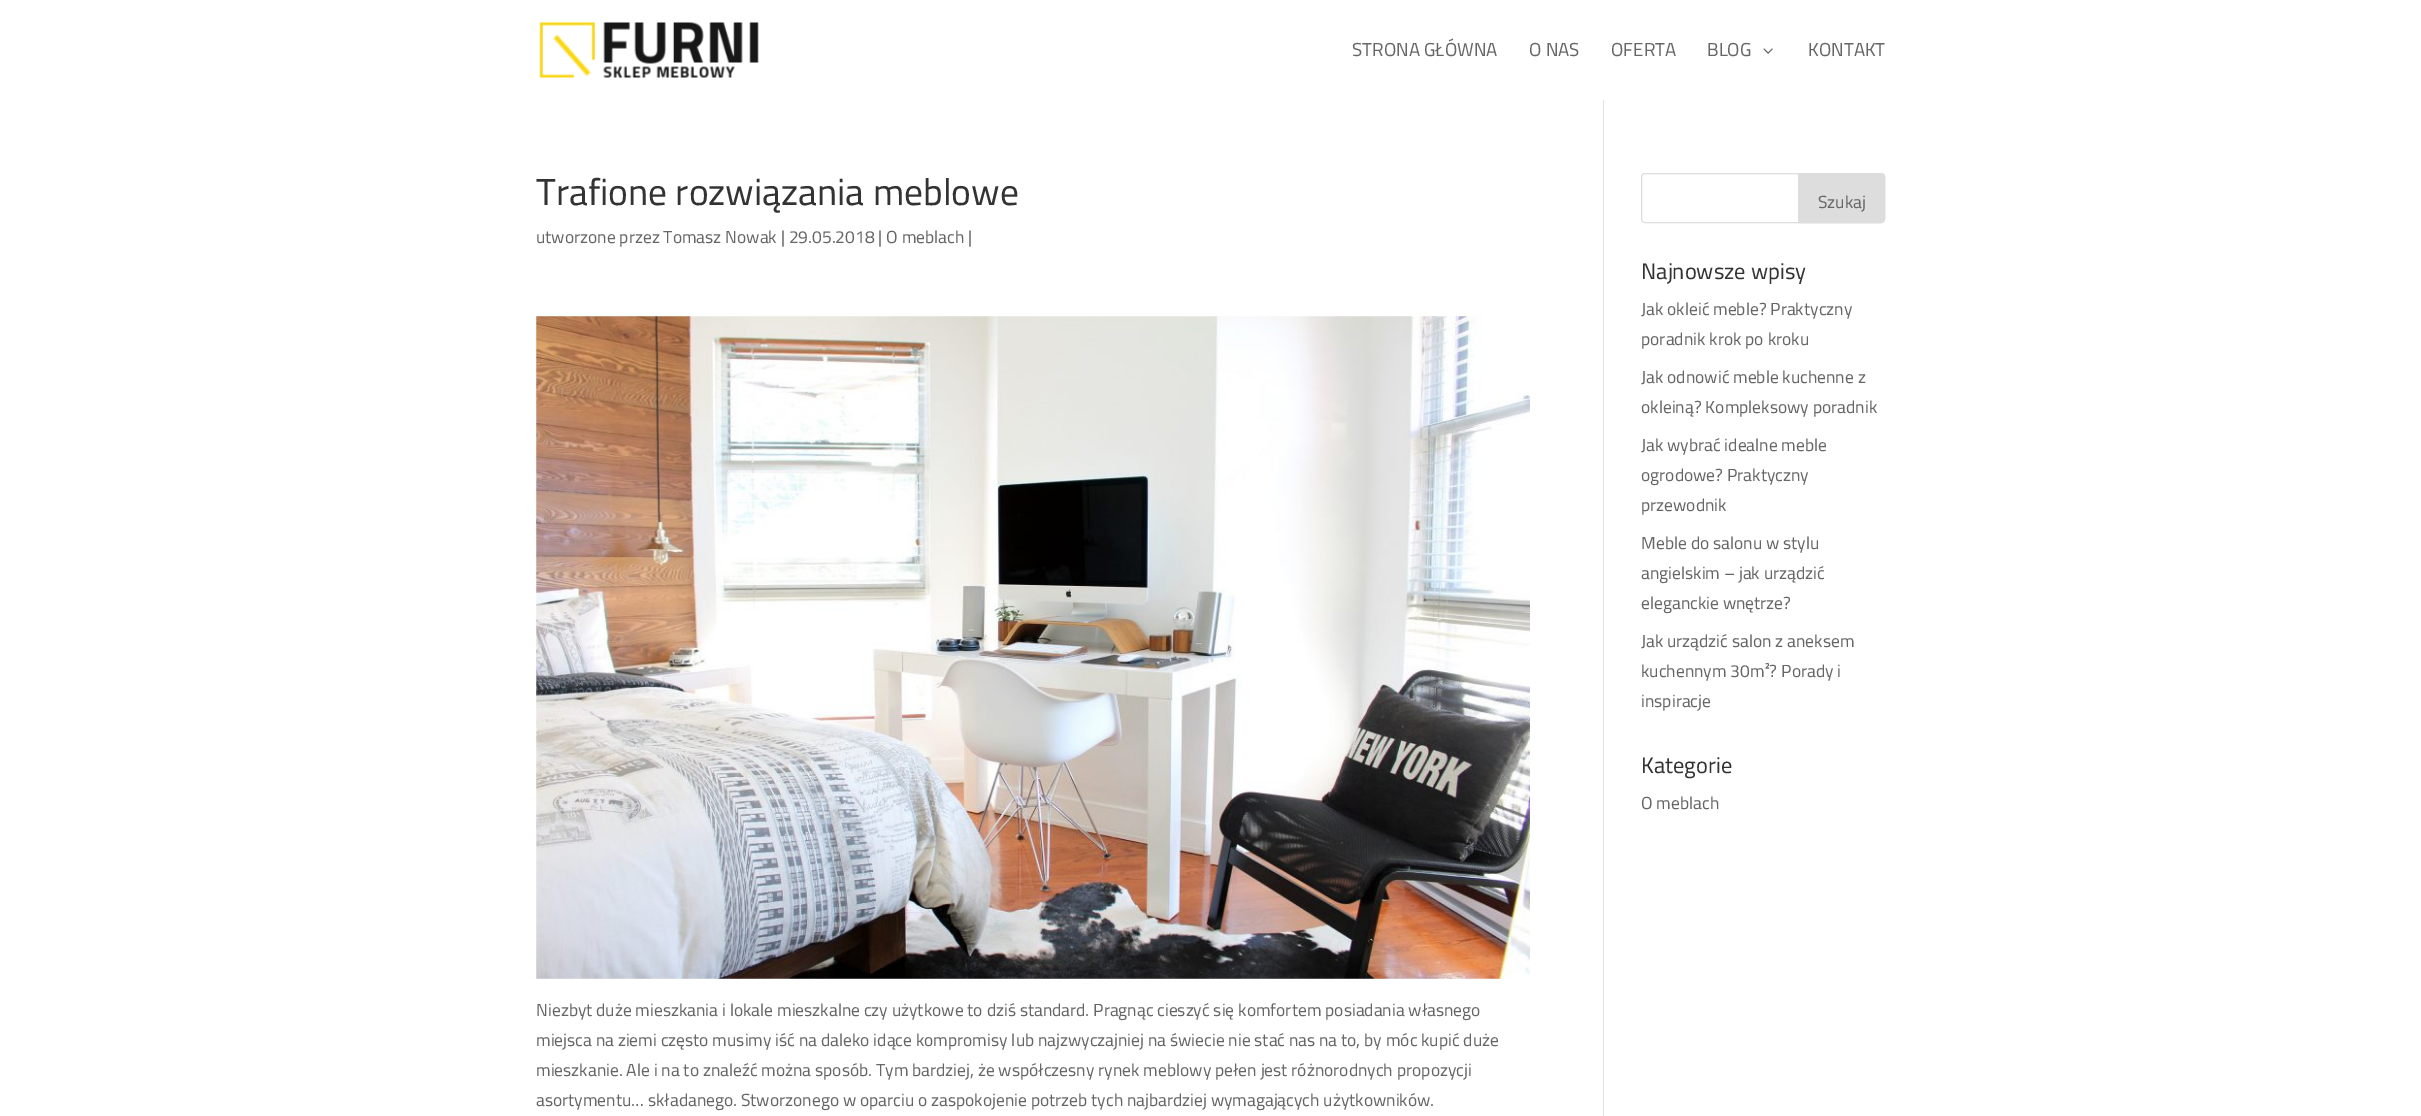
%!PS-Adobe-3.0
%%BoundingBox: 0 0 2421 1116
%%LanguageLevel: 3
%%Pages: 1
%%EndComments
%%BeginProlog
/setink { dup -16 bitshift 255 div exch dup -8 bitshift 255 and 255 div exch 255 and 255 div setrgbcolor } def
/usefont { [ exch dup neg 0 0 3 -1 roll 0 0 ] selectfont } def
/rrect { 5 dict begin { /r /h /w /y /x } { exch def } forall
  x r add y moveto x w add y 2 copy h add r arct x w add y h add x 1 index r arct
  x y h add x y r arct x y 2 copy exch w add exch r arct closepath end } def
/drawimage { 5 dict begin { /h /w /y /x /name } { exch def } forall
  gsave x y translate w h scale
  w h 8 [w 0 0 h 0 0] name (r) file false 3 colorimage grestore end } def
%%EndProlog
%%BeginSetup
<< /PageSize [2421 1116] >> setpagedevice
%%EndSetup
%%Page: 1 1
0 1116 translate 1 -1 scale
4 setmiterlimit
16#FFFFFF setink
0 0 2421 1116 rectfill
(img1.raw) 539 22 220 56 drawimage
/Cairo-Regular 18.75 usefont
16#666666 setink
[
    [(STRONA GŁÓWNA) 1352 56]
    [(O NAS) 1529 56]
    [(OFERTA) 1611 56]
    [(BLOG) 1707 56]
] { aload pop moveto show } forall
(img2.raw) 1763 48 10 6 drawimage
1808 56 moveto (KONTAKT) show
16#E2E2E2 setink
1603 100 1 1016 rectfill
/Cairo-Regular 37.5 usefont
16#333333 setink
536 205 moveto (Trafione rozwiązania meblowe) show
/Cairo-Regular 17.5 usefont
16#666666 setink
536 243 moveto (utworzone przez Tomasz Nowak | 29.05.2018 | O meblach |) show
(img3.raw) 536 316 994 663 drawimage
[
    [(Niezbyt duże mieszkania i lokale mieszkalne czy użytkowe to dziś standard. Pragnąc cieszyć się komfortem posiadania własnego) 536 1016]
    [(miejsca na ziemi często musimy iść na daleko idące kompromisy lub najzwyczajniej na świecie nie stać nas na to, by móc kupić duże) 536 1046]
    [(mieszkanie. Ale i na to znaleźć można sposób. Tym bardziej, że współczesny rynek meblowy pełen jest różnorodnych propozycji) 536 1076]
    [(asortymentu… składanego. Stworzonego w oparciu o zaspokojenie potrzeb tych najbardziej wymagających użytkowników.) 536 1106]
] { aload pop moveto show } forall
16#DDDDDD setink
1641.5 173.5 243 49 3.5 rrect stroke
1798.5 173.5 moveto 1881 173.5 lineto 1883 173.5 1884.5 175 1884.5 177 curveto 1884.5 219 lineto 1884.5 221 1883 222.5 1881 222.5 curveto 1798.5 222.5 lineto closepath gsave fill grestore
stroke
16#666666 setink
1818 208 moveto (Szukaj) show
/Cairo-Regular 22.5 usefont
16#333333 setink
1641 279 moveto (Najnowsze wpisy) show
/Cairo-Regular 17.5 usefont
16#666666 setink
[
    [(Jak okleić meble? Praktyczny) 1641 315]
    [(poradnik krok po kroku) 1641 345]
    [(Jak odnowić meble kuchenne z) 1641 383]
    [(okleiną? Kompleksowy poradnik) 1641 413]
    [(Jak wybrać idealne meble) 1641 451]
    [(ogrodowe? Praktyczny) 1641 481]
    [(przewodnik) 1641 511]
    [(Meble do salonu w stylu) 1641 549]
    [(angielskim – jak urządzić) 1641 579]
    [(eleganckie wnętrze?) 1641 609]
    [(Jak urządzić salon z aneksem) 1641 647]
    [(kuchennym 30m²? Porady i) 1641 677]
    [(inspiracje) 1641 707]
] { aload pop moveto show } forall
/Cairo-Regular 22.5 usefont
16#333333 setink
1641 773 moveto (Kategorie) show
/Cairo-Regular 17.5 usefont
16#666666 setink
1641 809 moveto (O meblach) show
showpage
%%EOF
